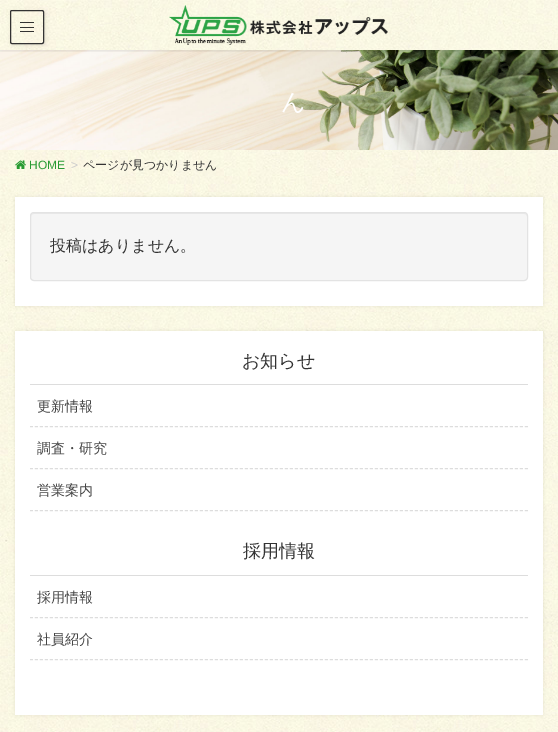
%!PS-Adobe-3.0
%%BoundingBox: 0 0 558 732
%%LanguageLevel: 3
%%Pages: 1
%%EndComments
%%BeginProlog
/setink { dup -16 bitshift 255 div exch dup -8 bitshift 255 and 255 div exch 255 and 255 div setrgbcolor } def
/usefont { [ exch dup neg 0 0 3 -1 roll 0 0 ] selectfont } def
/setalpha { dup .setfillconstantalpha .setstrokeconstantalpha } def
/rrect { 5 dict begin { /r /h /w /y /x } { exch def } forall
  x r add y moveto x w add y 2 copy h add r arct x w add y h add x 1 index r arct
  x y h add x y r arct x y 2 copy exch w add exch r arct closepath end } def
/softshadow { 12 dict begin { /a /b /q /h /w /y /x } { exch def } forall gsave /was 0 def
  9 -2 -9 { dup b mul 4 div /e exch def 1 sub .425 mul 2.718 exch exp 1 add a .99 .min exch div /now exch def
    1 1 now sub 1 was sub div sub setalpha /was now def
    w h .min e 2 mul add 0 gt { x e sub y e sub w e 2 mul add h e 2 mul add
      q e add b .6 mul add w h .min 2 div e add .min 0 .max rrect fill } if } for grestore end } def
/drawimage { 5 dict begin { /h /w /y /x /name } { exch def } forall
  gsave x y translate w h scale
  w h 8 [w 0 0 h 0 0] name (r) file false 3 colorimage grestore end } def
%%EndProlog
%%BeginSetup
<< /PageSize [558 732] /PageUsesTransparency true >> setpagedevice
%%EndSetup
%%Page: 1 1
0 .pushpdf14devicefilter
0 732 translate 1 -1 scale
4 setmiterlimit
16#FFFFFF setink
0 0 558 732 rectfill
(img1.raw) 0 0 558 732 drawimage
(img3.raw) 0 50 558 100 drawimage
gsave
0 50 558 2 rectclip
16#000000 setink
0 1 558 50 0 1.5 0.1 softshadow
grestore
(img2.raw) 169 5 219 40 drawimage
gsave
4 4 moveto 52 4 lineto 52 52 lineto 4 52 lineto closepath 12 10 moveto 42 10 lineto 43 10 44 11 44 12 curveto 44 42 lineto 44 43 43 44 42 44 curveto 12 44 lineto 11 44 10 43 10 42 curveto 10 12 lineto 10 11 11 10 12 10 curveto closepath eoclip newpath
16#000000 setink
11 11 34 34 2 2 0.1 softshadow
grestore
[
    [20 22 14 1 16#333333]
    [20 27 14 1 16#333333]
    [20 31 14 1 16#333333]
] { aload pop setink rectfill } forall
10.5 10.5 33 33 1.5 rrect stroke
/WenQuanYiZenHei-Medium 24 usefont
16#FFFFFF setink
281 110 moveto (ん) show
(img4.raw) 15 160 11 9 drawimage
/LiberationSans-Regular 12 usefont
16#289B32 setink
29 169 moveto (HOME) show
16#CCCCCC setink
71 169 moveto (>) show
/WenQuanYiZenHei-Medium 12 usefont
16#333333 setink
83 169 moveto (ページが見つかりません) show
16#000000 setink
15 197 528 109 0 1.5 0.08 softshadow
16#FFFFFF setink
15 197 528 109 rectfill
16#F5F5F5 setink
30 212 498 69 4 rrect fill
16#E9E9E9 setink
34 214 moveto 524 214 lineto 526 214 527 215 527 217 curveto 527 215 526 213 524 213 curveto 34 213 lineto 32 213 31 215 31 217 curveto 31 215 32 214 34 214 curveto closepath fill
16#E3E3E3 setink
30.5 212.5 497 68 3.5 rrect stroke
/WenQuanYiZenHei-Medium 16 usefont
16#333333 setink
50 251 moveto (投稿はありません。) show
16#000000 setink
15 331 528 384 0 1.5 0.08 softshadow
16#FFFFFF setink
15 331 528 384 rectfill
16#DDDDDD setink
30 384 498 1 rectfill
/WenQuanYiZenHei-Medium 18 usefont
16#333333 setink
242 367 moveto (お知らせ) show
16#DDDDDD setink
[3 2] 0 setdash
30 426.5 moveto 528 426.5 lineto stroke
/WenQuanYiZenHei-Medium 14 usefont
16#464646 setink
37 411 moveto (更新情報) show
16#DDDDDD setink
30 468.5 moveto 528 468.5 lineto stroke
16#464646 setink
37 453 moveto (調査・研究) show
16#DDDDDD setink
30 510.5 moveto 528 510.5 lineto stroke
16#464646 setink
37 495 moveto (営業案内) show
16#DDDDDD setink
30 575 498 1 rectfill
/WenQuanYiZenHei-Medium 18 usefont
16#333333 setink
243 557 moveto (採用情報) show
16#DDDDDD setink
30 617.5 moveto 528 617.5 lineto stroke
/WenQuanYiZenHei-Medium 14 usefont
16#464646 setink
37 602 moveto (採用情報) show
16#DDDDDD setink
30 659.5 moveto 528 659.5 lineto stroke
16#464646 setink
37 644 moveto (社員紹介) show
.poppdf14devicefilter showpage
%%EOF
